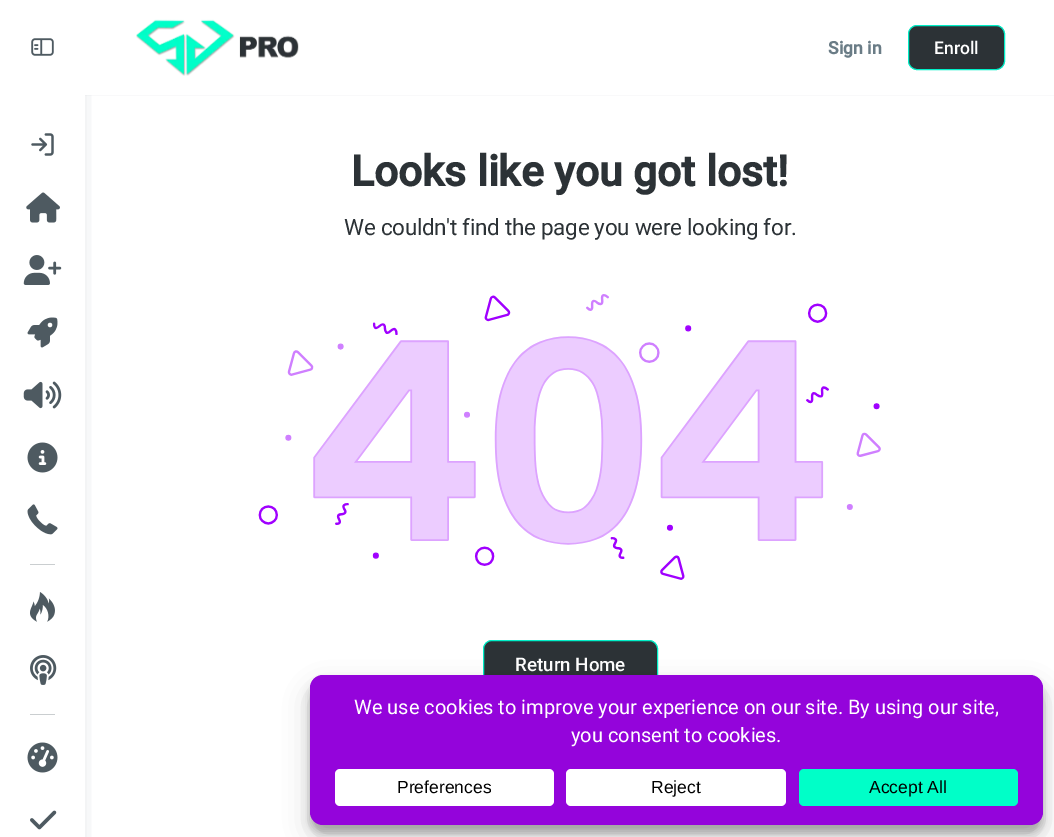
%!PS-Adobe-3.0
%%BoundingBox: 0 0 1054 837
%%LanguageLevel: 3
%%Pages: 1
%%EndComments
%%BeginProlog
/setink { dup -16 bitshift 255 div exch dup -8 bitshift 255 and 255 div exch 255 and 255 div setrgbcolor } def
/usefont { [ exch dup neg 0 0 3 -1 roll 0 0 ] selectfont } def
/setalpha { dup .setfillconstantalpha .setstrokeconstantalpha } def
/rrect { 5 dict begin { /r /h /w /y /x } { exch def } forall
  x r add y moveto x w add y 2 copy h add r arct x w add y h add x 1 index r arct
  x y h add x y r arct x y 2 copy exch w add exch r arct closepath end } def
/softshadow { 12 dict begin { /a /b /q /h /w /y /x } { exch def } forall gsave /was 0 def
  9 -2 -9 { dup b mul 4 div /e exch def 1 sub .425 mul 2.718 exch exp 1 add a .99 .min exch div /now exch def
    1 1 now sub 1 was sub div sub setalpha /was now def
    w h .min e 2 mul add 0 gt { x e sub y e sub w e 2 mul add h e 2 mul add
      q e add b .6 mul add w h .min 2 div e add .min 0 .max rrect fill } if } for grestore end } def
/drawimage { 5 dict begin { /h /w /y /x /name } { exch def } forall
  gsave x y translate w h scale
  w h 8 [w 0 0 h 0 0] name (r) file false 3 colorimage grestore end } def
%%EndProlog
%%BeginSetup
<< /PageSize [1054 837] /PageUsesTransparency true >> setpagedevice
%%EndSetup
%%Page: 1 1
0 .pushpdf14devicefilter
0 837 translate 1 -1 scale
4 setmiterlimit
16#FFFFFF setink
0 0 1054 837 rectfill
gsave
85 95 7 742 rectclip
16#122B46 setink
0 4 85 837 0 8 0.1 softshadow
grestore
(img1.raw) 31 38 23 18 drawimage
(img2.raw) 31 133 23 23 drawimage
(img3.raw) 26 192 34 31 drawimage
(img4.raw) 23 255 39 30 drawimage
(img5.raw) 27 317 31 31 drawimage
(img6.raw) 23 381 39 28 drawimage
(img7.raw) 27 442 31 31 drawimage
(img8.raw) 27 504 31 31 drawimage
16#CACED0 setink
30 564 25 1 rectfill
(img9.raw) 30 592 25 30 drawimage
(img10.raw) 30 655 27 30 drawimage
30 714 25 1 rectfill
(img11.raw) 27 742 31 31 drawimage
(img12.raw) 30 810 27 20 drawimage
0.05 setalpha
16#8B8D9D setink
85 95 969 1 rectfill
1 setalpha
16#FFFFFF setink
85 0 10 95 rectfill
(img13.raw) 136 19 163 57 drawimage
/Roboto-Bold 17.5 usefont
16#6A7C86 setink
828 54 moveto (Sign in) show
16#2C3236 setink
908.5 25.5 96 44 8.5 rrect gsave fill grestore
16#00EFC8 setink
stroke
/Roboto-Medium 17.5 usefont
16#FFFFFF setink
934 54 moveto (Enroll) show
/Roboto-Bold 42.5 usefont
16#2C3236 setink
351 186 moveto (Looks like you got lost!) show
/Roboto-Regular 22.5 usefont
344 235 moveto -0.3 0 (We couldn't find the page you were looking for.) ashow
(img14.raw) 258 294 623 286 drawimage
483.5 640.5 174 52 8.5 rrect gsave fill grestore
16#00EFC8 setink
stroke
/Roboto-Medium 18.75 usefont
16#FFFFFF setink
515 671 moveto (Return Home) show
16#000000 setink
310 683 733 150 13 4 0.23 softshadow
310 688 733 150 13 12.5 0.19 softshadow
16#9404DB setink
310 675 733 150 13 rrect fill
/Roboto-Regular 20 usefont
16#FFFFFF setink
354 714 moveto (We use cookies to improve your experience on our site. By using our site,) show
571 742 moveto (you consent to cookies.) show
335 769 219 37 5 rrect fill
/LiberationSans-Regular 17.5 usefont
16#000000 setink
397 793 moveto (Preferences) show
16#FFFFFF setink
566 769 220 37 5 rrect fill
16#000000 setink
651 793 moveto (Reject) show
16#00FFC8 setink
799 769 219 37 5 rrect fill
16#000000 setink
869 793 moveto (Accept All) show
.poppdf14devicefilter showpage
%%EOF
